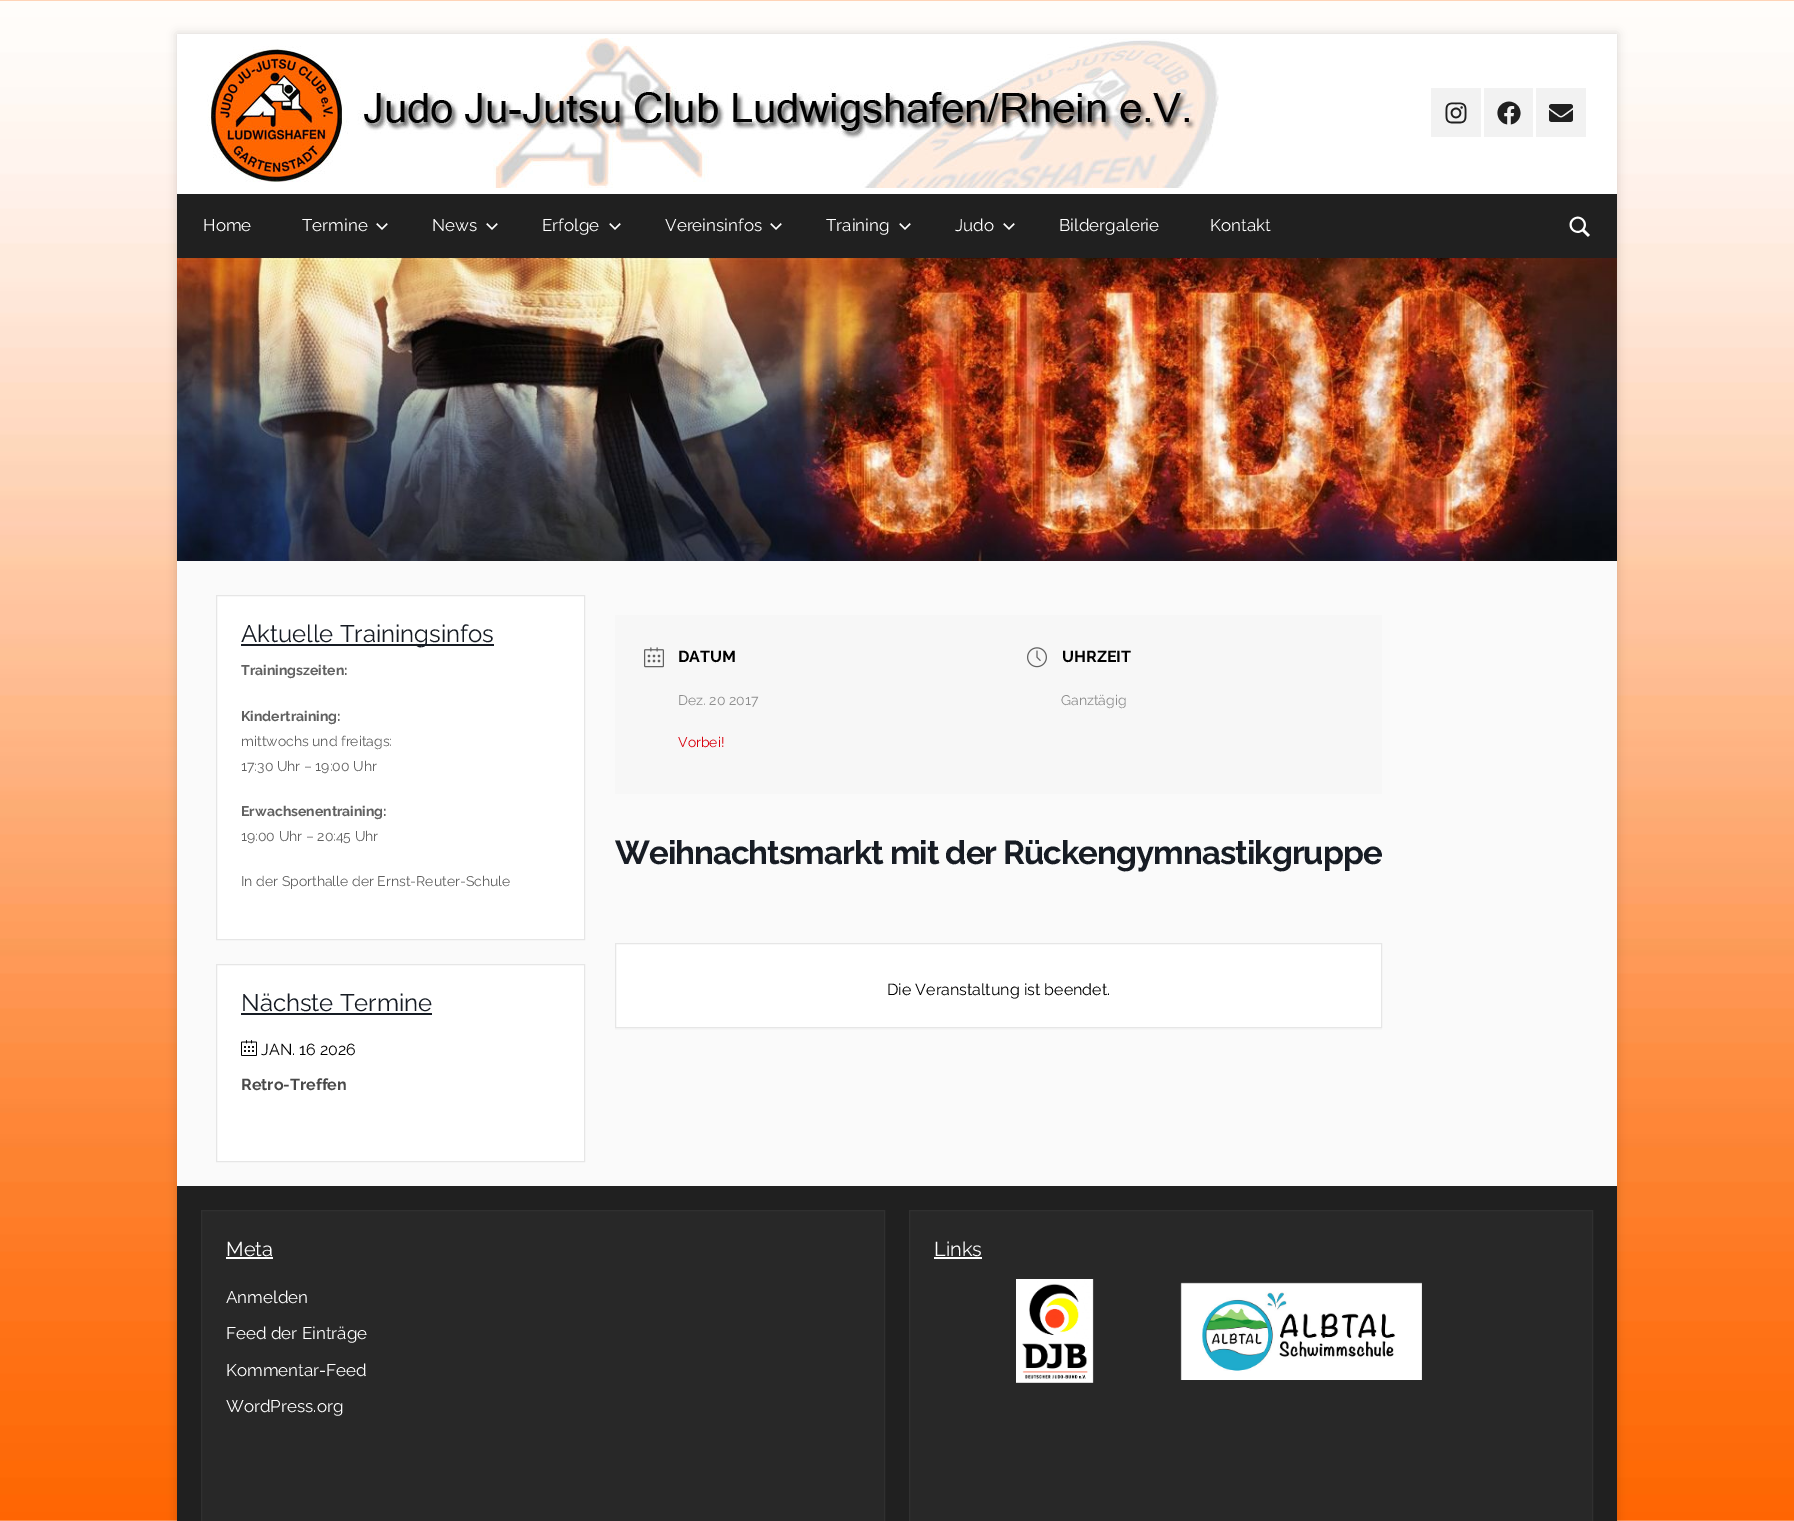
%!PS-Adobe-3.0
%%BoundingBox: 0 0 1794 1521
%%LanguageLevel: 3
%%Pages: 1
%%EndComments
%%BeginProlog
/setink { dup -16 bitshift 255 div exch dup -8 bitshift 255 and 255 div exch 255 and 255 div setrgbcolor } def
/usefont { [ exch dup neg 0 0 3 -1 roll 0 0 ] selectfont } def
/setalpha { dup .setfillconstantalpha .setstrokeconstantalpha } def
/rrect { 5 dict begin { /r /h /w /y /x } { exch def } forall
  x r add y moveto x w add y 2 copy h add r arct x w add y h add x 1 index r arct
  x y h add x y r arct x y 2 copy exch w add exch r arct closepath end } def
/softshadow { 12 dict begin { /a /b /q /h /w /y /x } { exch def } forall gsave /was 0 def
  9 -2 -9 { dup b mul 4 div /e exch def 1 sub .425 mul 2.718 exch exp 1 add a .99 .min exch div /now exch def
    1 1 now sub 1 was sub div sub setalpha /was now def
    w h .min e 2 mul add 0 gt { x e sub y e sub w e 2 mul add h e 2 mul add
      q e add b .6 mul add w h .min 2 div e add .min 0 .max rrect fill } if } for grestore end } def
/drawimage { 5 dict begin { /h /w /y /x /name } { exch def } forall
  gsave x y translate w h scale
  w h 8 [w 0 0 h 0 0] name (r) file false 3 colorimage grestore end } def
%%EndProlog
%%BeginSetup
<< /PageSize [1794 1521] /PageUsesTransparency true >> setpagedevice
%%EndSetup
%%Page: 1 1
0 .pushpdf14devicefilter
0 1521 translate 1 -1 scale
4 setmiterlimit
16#FFFFFF setink
0 0 1794 1521 rectfill
(img1.raw) 0 0 1794 1521 drawimage
16#000000 setink
177 34 1440 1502 0 5 0.15 softshadow
16#FAFAFA setink
177 561 1440 625 rectfill
16#FFFFFF setink
177 34 1440 160 rectfill
(img2.raw) 207 38 1012 150 drawimage
16#F2F2F2 setink
1431 88 50 49 rectfill
(img3.raw) 1445 102 22 22 drawimage
1484 88 49 49 rectfill
(img4.raw) 1497 101 24 24 drawimage
1536 88 50 49 rectfill
(img5.raw) 1549 104 24 18 drawimage
16#202020 setink
177 194 1440 64 rectfill
/Raleway-Thin 17 usefont
16#FFFFFF setink
203 231 moveto (Home) show
302 231 moveto (Termine) show
(img6.raw) 376 223 12 7 drawimage
432 231 moveto (News) show
(img6.raw) 486 223 12 7 drawimage
542 231 moveto (Erfolge) show
(img6.raw) 609 223 12 7 drawimage
665 231 moveto (Vereinsinfos) show
(img6.raw) 770 223 12 7 drawimage
826 231 moveto (Training) show
(img6.raw) 899 223 12 7 drawimage
955 231 moveto (Judo) show
(img6.raw) 1003 223 12 7 drawimage
1059 231 moveto (Bildergalerie) show
1210 231 moveto (Kontakt) show
(img7.raw) 1569 216 21 21 drawimage
(img8.raw) 177 258 1440 303 drawimage
216.5 595.5 moveto 584.5 595.5 lineto 584.5 939.5 lineto 216.5 939.5 lineto closepath gsave fill grestore
16#E6E6E6 setink
stroke
16#171C24 setink
241 644 253 2 rectfill
/Raleway-Thin 24 usefont
241 642 moveto (Aktuelle Trainingsinfos) show
/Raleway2-Thin 14 usefont
16#616161 setink
241 675 moveto (Trainingszeiten:) show
241 721 moveto (Kindertraining:) show
/Raleway-Thin 14 usefont
241 746 moveto (mittwochs und freitags:) show
241 771 moveto (17:30 Uhr – 19:00 Uhr) show
/Raleway2-Thin 14 usefont
241 816 moveto (Erwachsenentraining:) show
/Raleway-Thin 14 usefont
241 841 moveto (19:00 Uhr – 20:45 Uhr) show
241 886 moveto (In der Sporthalle der Ernst-Reuter-Schule) show
16#FFFFFF setink
216.5 964.5 moveto 584.5 964.5 lineto 584.5 1161.5 lineto 216.5 1161.5 lineto closepath gsave fill grestore
16#E6E6E6 setink
stroke
/Raleway-Thin 24 usefont
16#171C24 setink
241 1011 moveto (Nächste Termine) show
241 1013 191 2 rectfill
(img9.raw) 241 1040 16 16 drawimage
/Raleway-Thin 16 usefont
16#000000 setink
261 1055 moveto (JAN. 16 2026) show
/Raleway2-Thin 16 usefont
16#494949 setink
241 1090 moveto (Retro-Treffen) show
16#F7F7F7 setink
615 615 767 179 rectfill
(img10.raw) 644 647 20 21 drawimage
16#000000 setink
678 662 moveto (DATUM) show
/Raleway-Thin 14 usefont
16#8D8D8D setink
678 705 moveto (Dez. 20 2017) show
16#D8000C setink
678 747 moveto (Vorbei!) show
(img11.raw) 1027 647 20 21 drawimage
/Raleway2-Thin 16 usefont
16#000000 setink
1062 662 moveto (UHRZEIT) show
/Raleway-Thin 14 usefont
16#8D8D8D setink
1061 705 moveto (Ganztägig) show
/Raleway2-Thin 33 usefont
16#171C24 setink
615 864 moveto -1 0 (Weihnachtsmarkt mit der Rückengymnastikgruppe) ashow
16#F6F6F6 setink
615 1028 767 2 rectfill
16#FFFFFF setink
615.5 943.5 moveto 1381.5 943.5 lineto 1381.5 1027.5 lineto 615.5 1027.5 lineto closepath gsave fill grestore
16#E6E6E6 setink
stroke
/Raleway-Thin 16 usefont
16#000000 setink
887 995 moveto (Die Veranstaltung ist beendet.) show
16#202020 setink
177 1186 1440 335 rectfill
16#282828 setink
201.5 1210.5 moveto 884.5 1210.5 lineto 884.5 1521.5 lineto 201.5 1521.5 lineto closepath gsave fill grestore
16#303030 setink
stroke
/Raleway-Thin 20 usefont
16#FFFFFF setink
226 1256 moveto (Meta) show
226 1257 47 2 rectfill
/Raleway-Thin 17 usefont
[
    [(Anmelden) 226 1303]
    [(Feed der Einträge) 226 1339]
    [(Kommentar-Feed) 226 1376]
    [(WordPress.org) 226 1412]
] { aload pop moveto show } forall
16#282828 setink
909.5 1210.5 moveto 1592.5 1210.5 lineto 1592.5 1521.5 lineto 909.5 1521.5 lineto closepath gsave fill grestore
16#303030 setink
stroke
/Raleway-Thin 20 usefont
16#FFFFFF setink
934 1256 moveto (Links) show
934 1257 48 2 rectfill
(img12.raw) 1016 1279 78 104 drawimage
(img13.raw) 1180 1282 242 98 drawimage
.poppdf14devicefilter showpage
%%EOF
